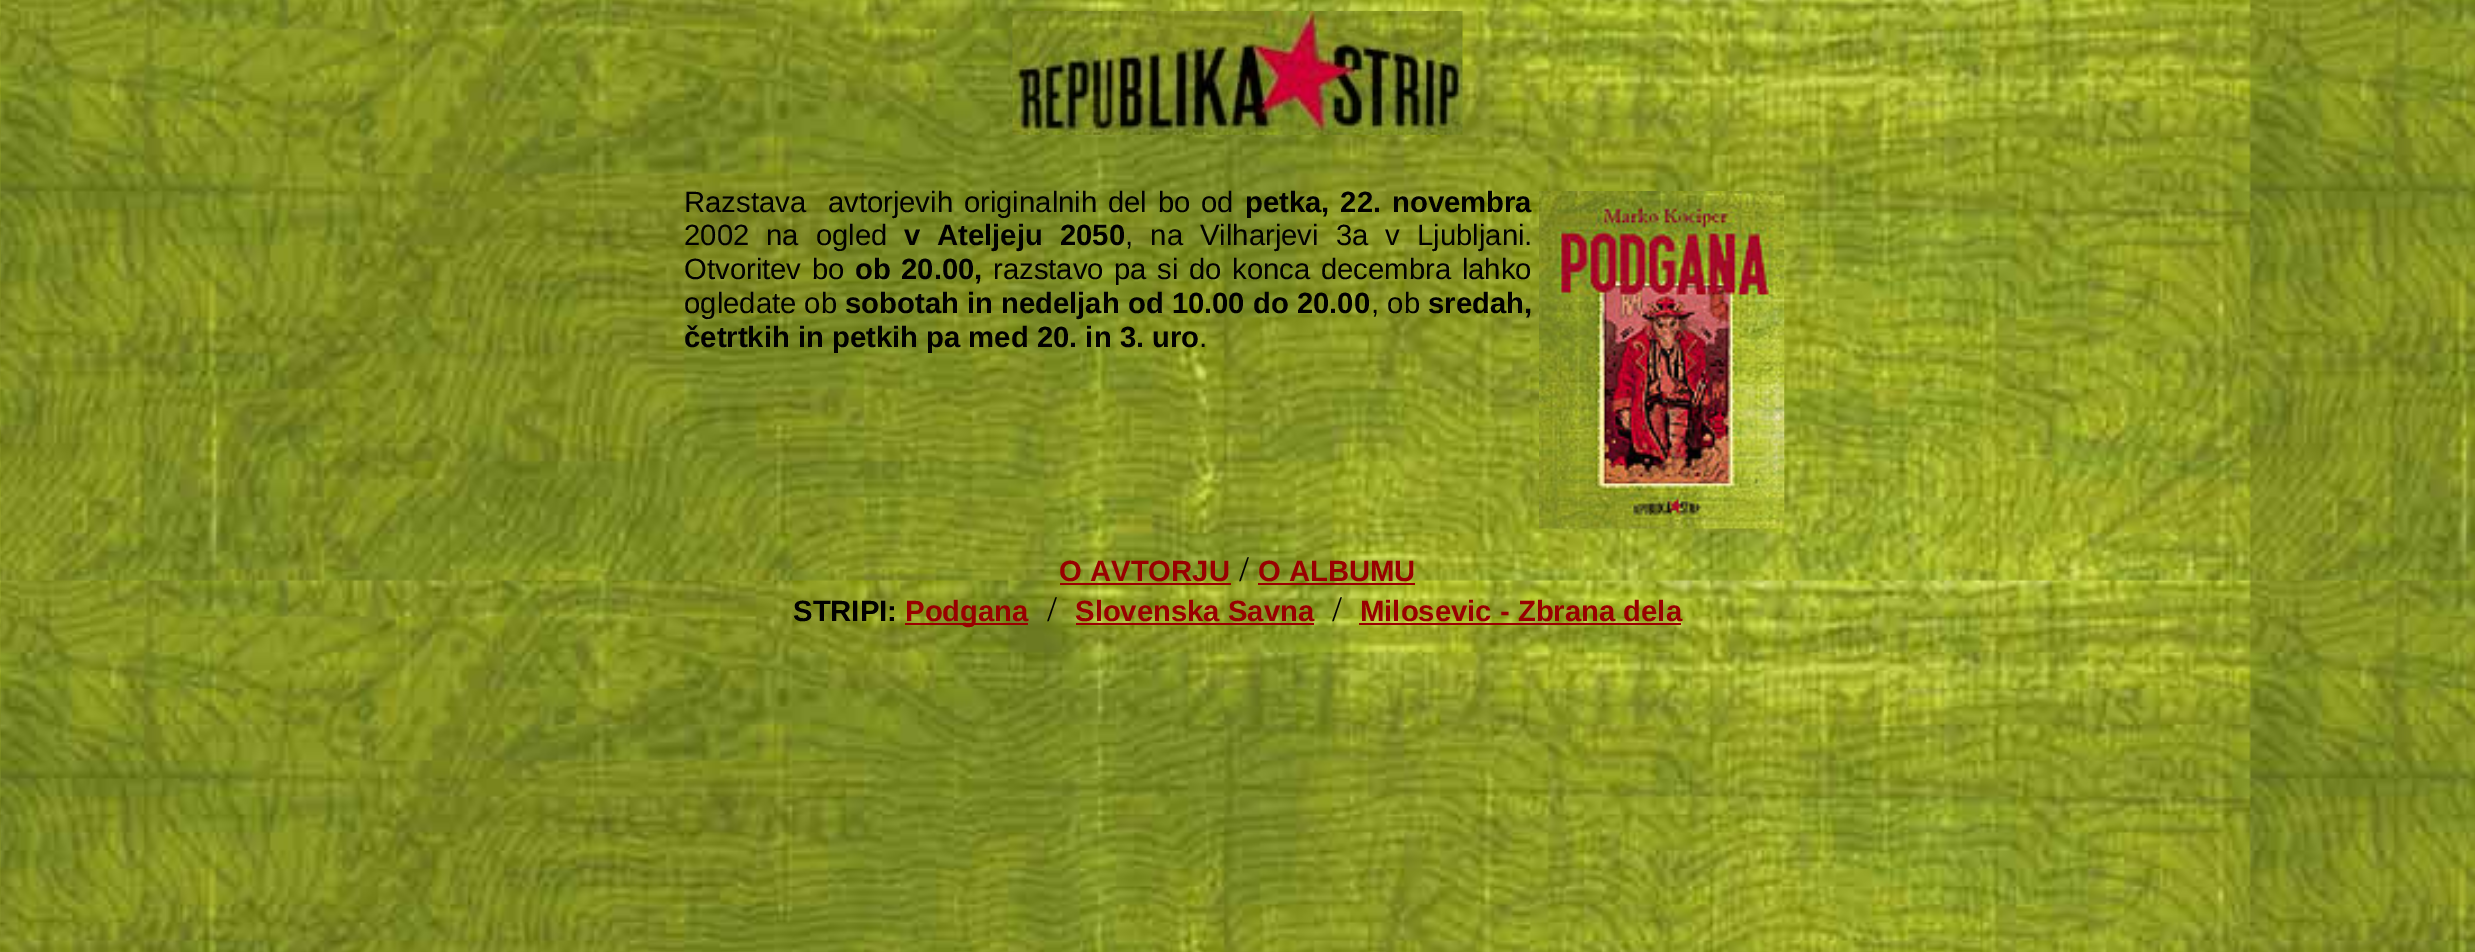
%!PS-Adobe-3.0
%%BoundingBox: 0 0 2475 952
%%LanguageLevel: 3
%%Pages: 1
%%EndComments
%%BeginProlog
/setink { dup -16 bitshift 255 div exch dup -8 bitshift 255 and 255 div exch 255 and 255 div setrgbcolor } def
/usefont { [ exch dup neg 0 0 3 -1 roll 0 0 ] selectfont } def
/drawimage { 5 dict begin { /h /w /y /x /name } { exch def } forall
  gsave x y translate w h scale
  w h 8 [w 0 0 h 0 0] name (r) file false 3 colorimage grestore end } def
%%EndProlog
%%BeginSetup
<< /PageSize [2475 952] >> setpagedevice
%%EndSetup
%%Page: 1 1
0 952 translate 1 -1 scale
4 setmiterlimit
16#FFFFFF setink
0 0 2475 952 rectfill
(img1.raw) 0 0 2475 952 drawimage
(img2.raw) 1012 11 451 124 drawimage
/LiberationSans-Regular 29.25 usefont
16#000000 setink
684 212 moveto 2.75 0 32 (Razstava  avtorjevih originalnih del bo od) widthshow
/LiberationSans-Bold 29.25 usefont
1245 212 moveto 2.75 0 32 (petka, 22. novembra) widthshow
(img3.raw) 1539 191 246 338 drawimage
/LiberationSans-Regular 29.25 usefont
684 245 moveto 9 0 32 (2002 na ogled) widthshow
/LiberationSans-Bold 29.25 usefont
904 245 moveto (v) show
937 245 moveto 9 0 32 (Ateljeju 2050) widthshow
/LiberationSans-Regular 29.25 usefont
1125 245 moveto 9 0 32 (, na Vilharjevi 3a v Ljubljani.) widthshow
684 279 moveto 3 0 32 (Otvoritev bo) widthshow
/LiberationSans-Bold 29.25 usefont
855 279 moveto (ob) show
901 279 moveto (20.00,) show
/LiberationSans-Regular 29.25 usefont
993 279 moveto 2.5 0 32 (razstavo pa si do konca decembra lahko) widthshow
684 313 moveto (ogledate ob) show
/LiberationSans-Bold 29.25 usefont
845 313 moveto (sobotah in nedeljah od 10.00 do 20.00) show
/LiberationSans-Regular 29.25 usefont
1371 313 moveto (, ob) show
/LiberationSans-Bold 29.25 usefont
1428 313 moveto (sredah,) show
684 347 moveto (četrtkih in petkih pa med 20. in 3. uro) show
/LiberationSans-Regular 29.25 usefont
1199 347 moveto (.) show
/LiberationSans-Bold 29.25 usefont
16#990000 setink
1059 581 moveto (O AVTORJU) show
1060 583 171 2 rectfill
/LiberationSerif-Regular 36 usefont
16#000000 setink
1239 581 moveto (/) show
/LiberationSans-Bold 29.25 usefont
16#990000 setink
1258 581 moveto (O ALBUMU) show
1258 583 157 2 rectfill
16#000000 setink
793 621 moveto (STRIPI:) show
16#990000 setink
905 623 123 2 rectfill
905 621 moveto (Podgana) show
/LiberationSerif-Regular 36 usefont
16#000000 setink
1047 621 moveto (/) show
/LiberationSans-Bold 29.25 usefont
16#990000 setink
1075 621 moveto (Slovenska Savna) show
1076 623 238 2 rectfill
/LiberationSerif-Regular 36 usefont
16#000000 setink
1332 621 moveto (/) show
/LiberationSans-Bold 29.25 usefont
16#990000 setink
1360 621 moveto (Milosevic - Zbrana dela) show
1359 623 322 2 rectfill
showpage
%%EOF
